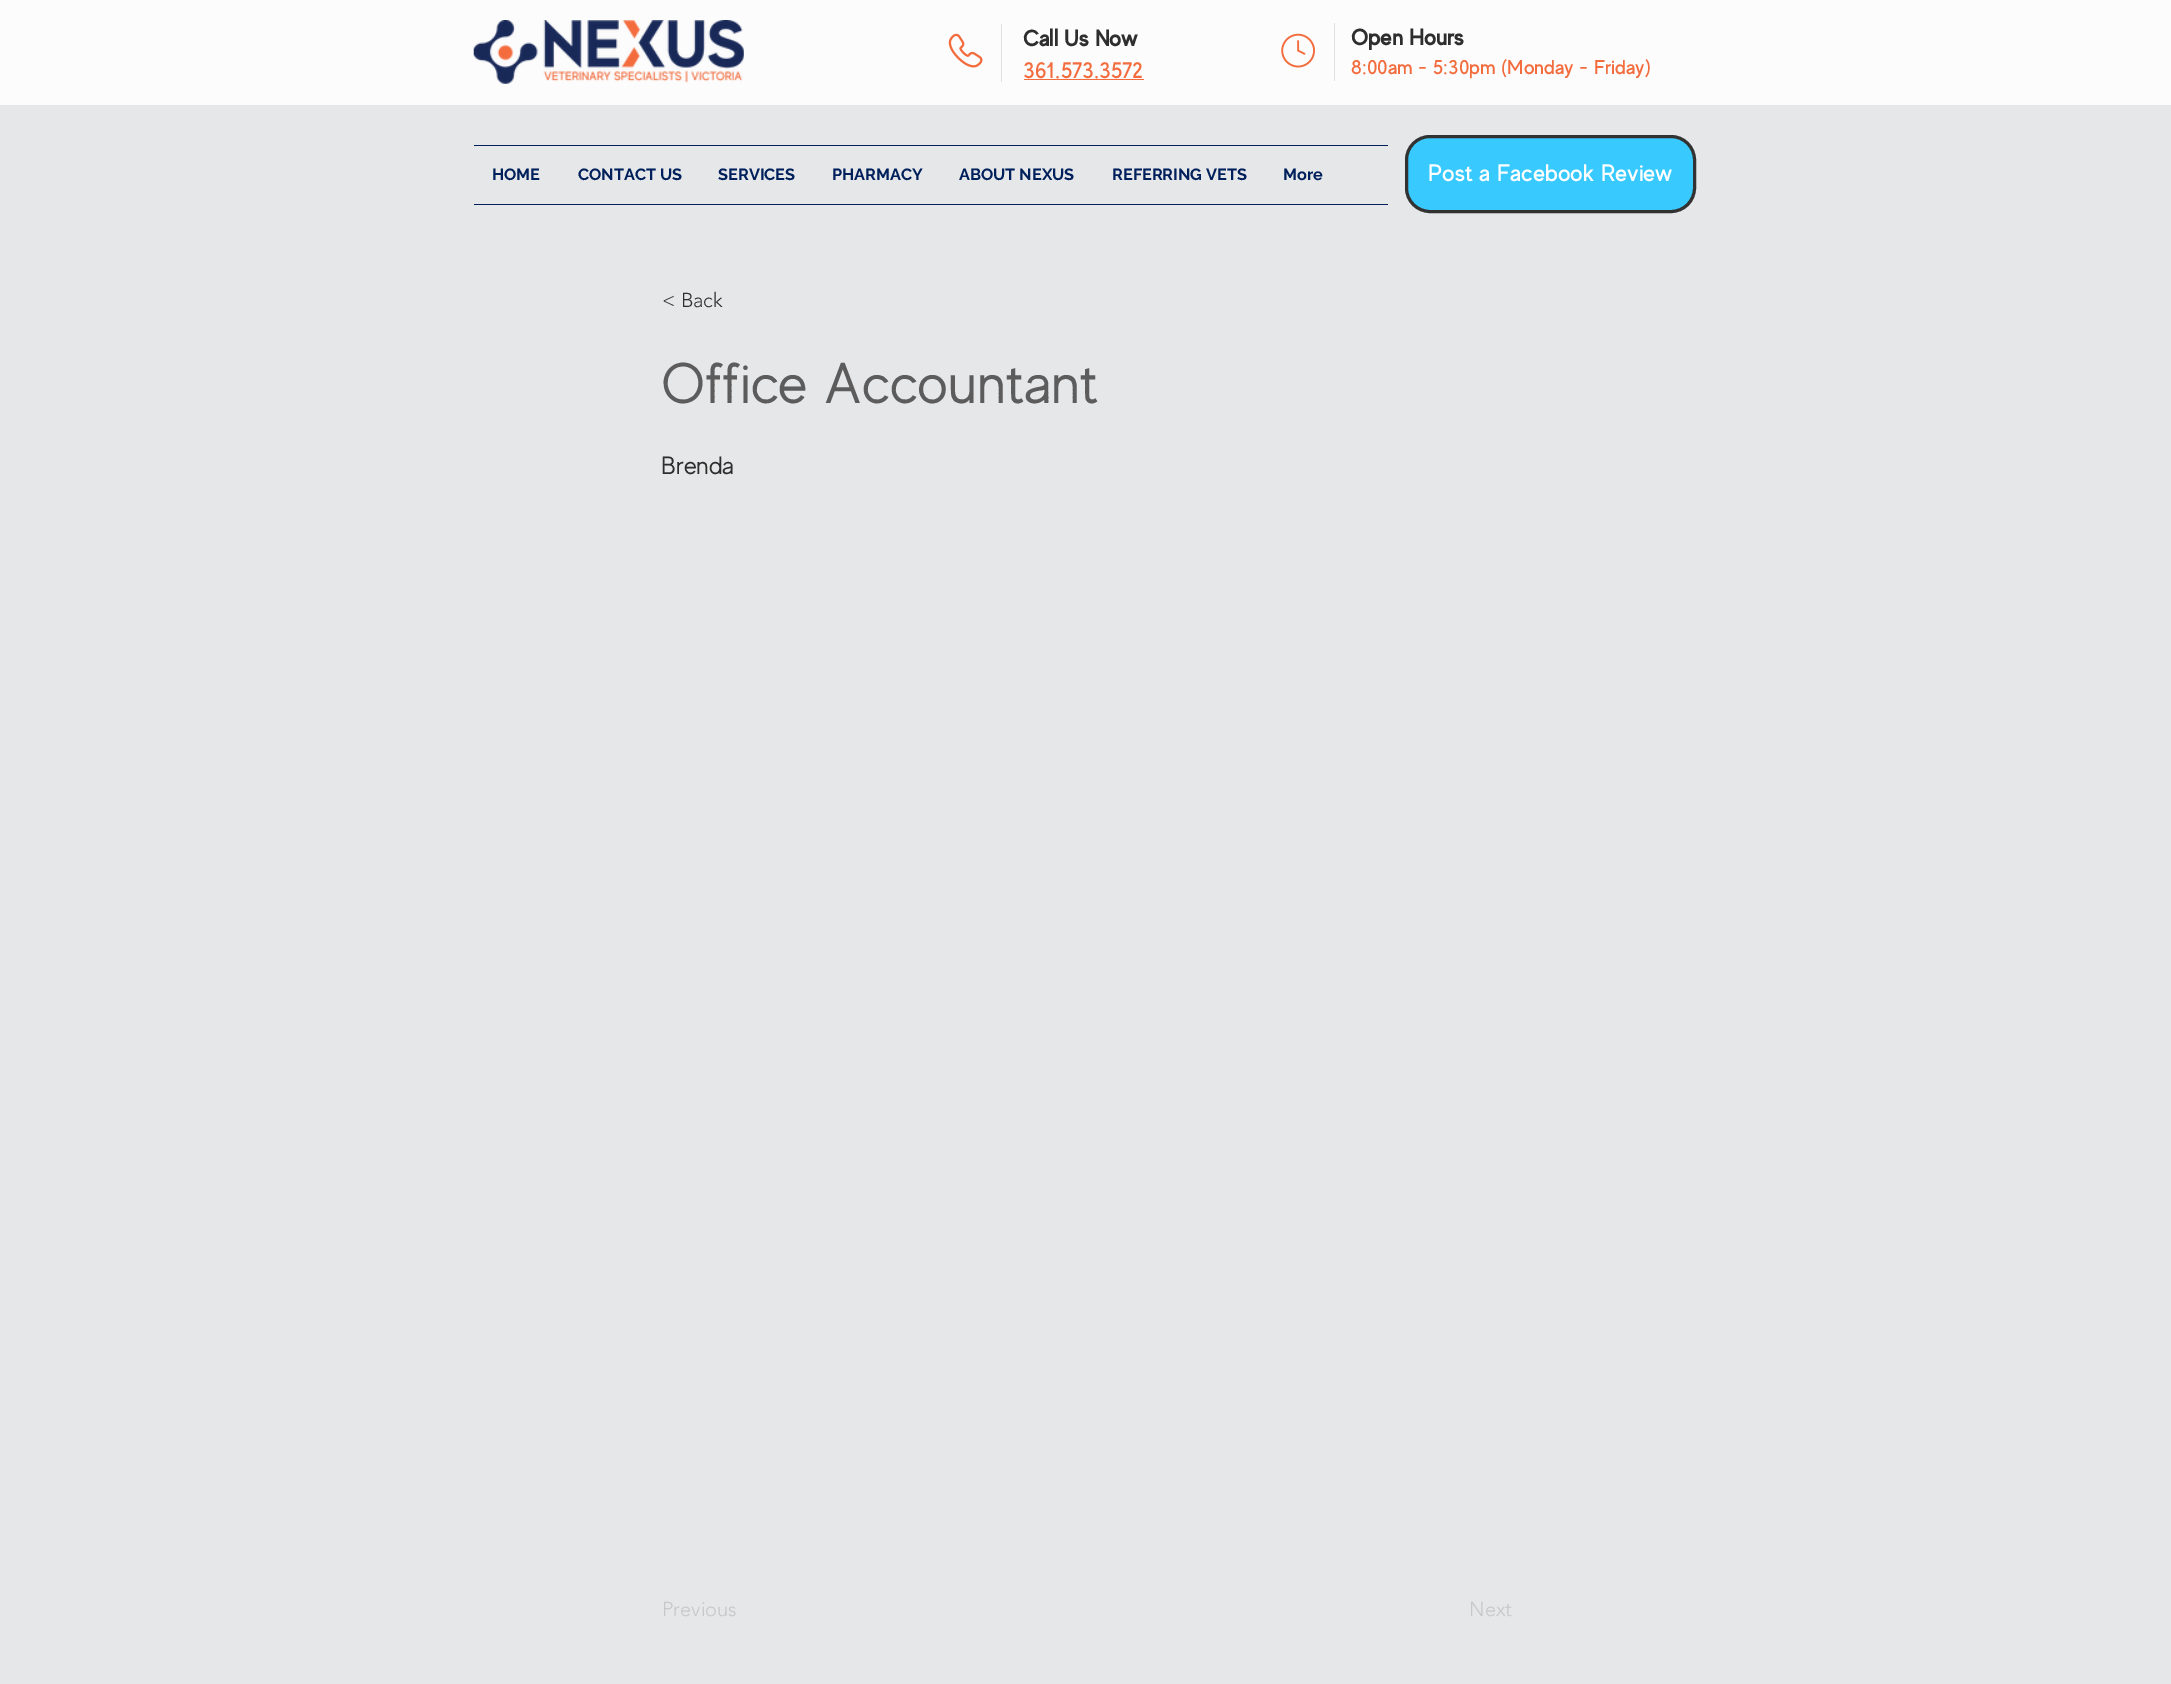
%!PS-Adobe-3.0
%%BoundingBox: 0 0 2171 1684
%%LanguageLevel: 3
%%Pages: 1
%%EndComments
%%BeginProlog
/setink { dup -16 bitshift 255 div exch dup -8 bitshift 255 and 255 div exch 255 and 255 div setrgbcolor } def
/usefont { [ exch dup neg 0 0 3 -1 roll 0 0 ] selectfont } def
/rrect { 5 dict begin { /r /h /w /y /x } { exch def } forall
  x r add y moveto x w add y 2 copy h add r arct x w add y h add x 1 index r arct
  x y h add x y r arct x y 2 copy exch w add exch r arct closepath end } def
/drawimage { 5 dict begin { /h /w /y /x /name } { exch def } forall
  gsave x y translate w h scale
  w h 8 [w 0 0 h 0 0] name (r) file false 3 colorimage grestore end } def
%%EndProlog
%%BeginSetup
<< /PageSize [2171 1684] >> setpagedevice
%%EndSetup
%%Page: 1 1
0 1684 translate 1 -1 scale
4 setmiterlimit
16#E6E7E8 setink
0 0 2171 1684 rectfill
16#FCFCFC setink
0 0 2171 105 rectfill
(img1.raw) 473 20 271 64 drawimage
(img2.raw) 948 33 35 35 drawimage
16#E0E1E1 setink
1001 24 1 58 rectfill
/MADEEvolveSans-Bold 22.5 usefont
16#2E2E2E setink
1023 46 moveto (Call Us Now) show
/MADEEvolveSans-Medium 22.5 usefont
16#F36C3D setink
1023 78 moveto (361.573.3572) show
1024 79 120 1 rectfill
(img3.raw) 1281 33 34 35 drawimage
16#E0E1E1 setink
1334 23 1 58 rectfill
/MADEEvolveSans-Bold 22.5 usefont
16#2E2E2E setink
1351 45 moveto (Open Hours) show
/MADEEvolveSans-Medium 20 usefont
16#F36C3D setink
1351 74 moveto (8:00am - 5:30pm \(Monday - Friday\)) show
16#00205C setink
474 145 914 1 rectfill
474 204 914 1 rectfill
/Raleway-Bold 16.25 usefont
[
    [(HOME) 492 180]
    [(CONTACT US) 578 180]
    [(SERVICES) 718 180]
    [(PHARMACY) 832 180]
    [(ABOUT NEXUS) 959 180]
    [(REFERRING VETS) 1112 180]
    [(More) 1283 180]
] { aload pop moveto show } forall
16#38CAFF setink
1406.5 136.5 288 75 23.5 rrect gsave fill grestore
16#323232 setink
3 setlinewidth
stroke
/MADEEvolveSans-Medium 23.75 usefont
16#FFFFFF setink
1428 181 moveto (Post a Facebook Review) show
/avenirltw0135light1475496-Light 20 usefont
16#2E2E2E setink
662 307 moveto (< Back) show
/MADEEvolveSans-Regular 57.5 usefont
16#5C5C5D setink
661 403 moveto (Office Accountant) show
/MADEEvolveSans-Regular 25 usefont
16#2E2E2E setink
661 474 moveto (Brenda) show
/avenirltw0135light1475496-Light 20 usefont
16#C7C7C7 setink
662 1616 moveto (Previous) show
1469 1616 moveto (Next) show
showpage
%%EOF
